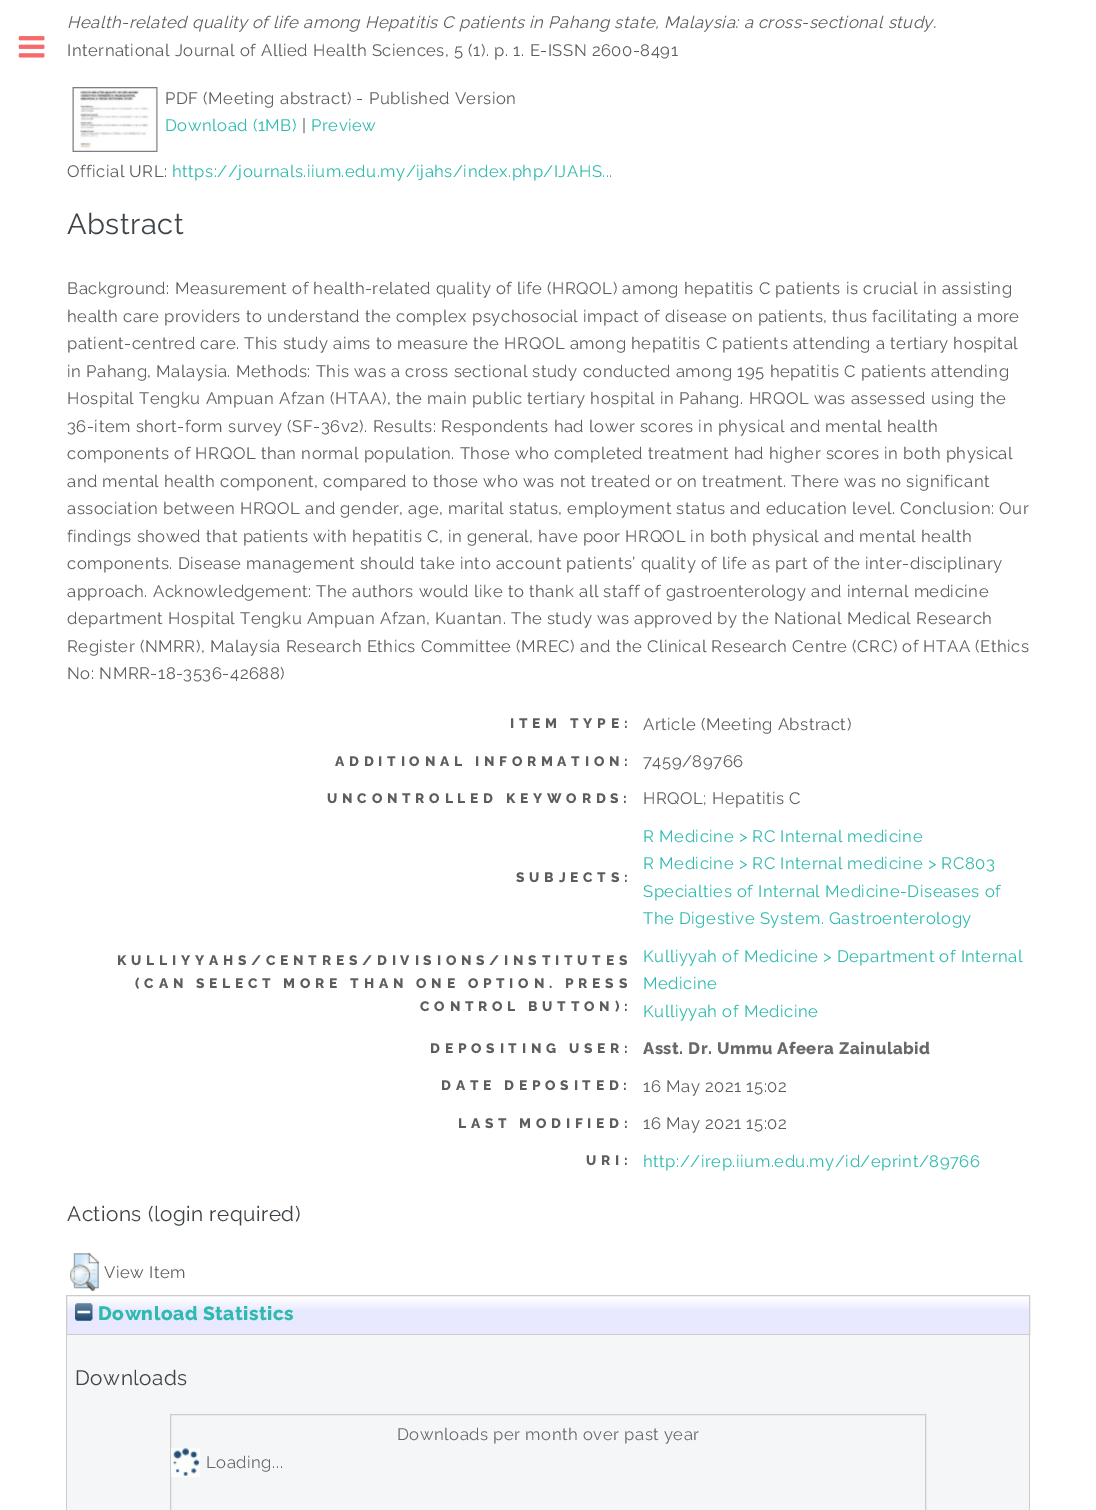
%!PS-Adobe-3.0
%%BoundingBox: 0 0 1096 1510
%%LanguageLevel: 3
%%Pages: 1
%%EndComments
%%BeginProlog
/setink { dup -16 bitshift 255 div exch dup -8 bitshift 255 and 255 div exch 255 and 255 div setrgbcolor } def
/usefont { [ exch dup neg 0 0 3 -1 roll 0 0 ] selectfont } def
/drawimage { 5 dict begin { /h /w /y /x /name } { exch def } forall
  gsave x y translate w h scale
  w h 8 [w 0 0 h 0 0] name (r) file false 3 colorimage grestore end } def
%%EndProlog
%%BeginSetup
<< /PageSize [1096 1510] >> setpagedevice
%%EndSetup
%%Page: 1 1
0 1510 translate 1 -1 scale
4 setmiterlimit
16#FFFFFF setink
0 0 1096 1510 rectfill
(img1.raw) 18 36 27 22 drawimage
/Raleway-Italic 16.67 usefont
16#5D5D5D setink
67 28 moveto 0.5 0 (Health-related quality of life among Hepatitis C patients in Pahang state, Malaysia: a cross-sectional study.) ashow
/Raleway-Regular 16.67 usefont
67 56 moveto 0.5 0 (International Journal of Allied Health Sciences, 5 \(1\). p. 1. E-ISSN 2600-8491) ashow
(img2.raw) 72 87 86 65 drawimage
165 104 moveto 0.5 0 (PDF \(Meeting abstract\) - Published Version) ashow
16#2EBAAE setink
165 131 moveto 0.5 0 (Download \(1MB\)) ashow
16#5D5D5D setink
302 131 moveto 0.5 0 (|) ashow
16#2EBAAE setink
311 131 moveto 0.5 0 (Preview) ashow
16#5D5D5D setink
67 177 moveto 0.5 0 (Official URL:) ashow
16#2EBAAE setink
172 177 moveto 0.5 0 (https://journals.iium.edu.my/ijahs/index.php/IJAHS...) ashow
/Raleway-Regular 29 usefont
16#3D4449 setink
67 234 moveto 0.5 0 (Abstract) ashow
/Raleway-Regular 16.67 usefont
16#5D5D5D setink
67 294 moveto 0.5 0 (Background: Measurement of health-related quality of life \(HRQOL\) among hepatitis C patients is crucial in assisting) ashow
67 322 moveto 0.5 0 (health care providers to understand the complex psychosocial impact of disease on patients, thus facilitating a more) ashow
67 349 moveto 0.5 0 (patient-centred care. This study aims to measure the HRQOL among hepatitis C patients attending a tertiary hospital) ashow
67 377 moveto 0.5 0 (in Pahang, Malaysia. Methods: This was a cross sectional study conducted among 195 hepatitis C patients attending) ashow
67 404 moveto 0.5 0 (Hospital Tengku Ampuan Afzan \(HTAA\), the main public tertiary hospital in Pahang. HRQOL was assessed using the) ashow
67 432 moveto 0.5 0 (36-item short-form survey \(SF-36v2\). Results: Respondents had lower scores in physical and mental health) ashow
67 459 moveto 0.5 0 (components of HRQOL than normal population. Those who completed treatment had higher scores in both physical) ashow
67 487 moveto 0.5 0 (and mental health component, compared to those who was not treated or on treatment. There was no significant) ashow
67 514 moveto 0.5 0 (association between HRQOL and gender, age, marital status, employment status and education level.) ashow
900 514 moveto 0.5 0 (Conclusion: Our) ashow
67 542 moveto 0.5 0 (findings showed that patients with hepatitis C, in general, have poor HRQOL in both physical and mental health) ashow
67 569 moveto 0.5 0 (components. Disease management should take into account patients’ quality of life as part of the inter-disciplinary) ashow
67 597 moveto 0.5 0 (approach. Acknowledgement: The authors would like to thank all staff of gastroenterology and internal medicine) ashow
67 624 moveto 0.5 0 (department Hospital Tengku Ampuan Afzan, Kuantan. The study was approved by the National Medical Research) ashow
67 652 moveto 0.5 0 (Register \(NMRR\), Malaysia Research Ethics Committee \(MREC\) and the Clinical Research Centre \(CRC\) of HTAA \(Ethics) ashow
67 679 moveto 0.5 0 (No: NMRR-18-3536-42688\)) ashow
/Raleway-ExtraBold 13.75 usefont
510 728 moveto 4.8 0 (ITEM TYPE:) ashow
/Raleway-Regular 16.67 usefont
643 730 moveto 0.5 0 (Article \(Meeting Abstract\)) ashow
/Raleway-ExtraBold 13.75 usefont
335 766 moveto 4.8 0 (ADDITIONAL INFORMATION:) ashow
/Raleway-Regular 16.67 usefont
643 767 moveto 0.5 0 (7459/89766) ashow
/Raleway-ExtraBold 13.75 usefont
327 803 moveto 4.8 0 (UNCONTROLLED KEYWORDS:) ashow
/Raleway-Regular 16.67 usefont
643 804 moveto 0.5 0 (HRQOL; Hepatitis C) ashow
/Raleway-ExtraBold 13.75 usefont
516 882 moveto 4.8 0 (SUBJECTS:) ashow
/Raleway-Regular 16.67 usefont
16#2EBAAE setink
643 842 moveto 0.5 0 (R Medicine > RC Internal medicine) ashow
643 869 moveto 0.5 0 (R Medicine > RC Internal medicine > RC803) ashow
643 897 moveto 0.5 0 (Specialties of Internal Medicine-Diseases of) ashow
643 924 moveto 0.5 0 (The Digestive System. Gastroenterology) ashow
/Raleway-ExtraBold 13.75 usefont
16#5D5D5D setink
117 965 moveto 4.8 0 (KULLIYYAHS/CENTRES/DIVISIONS/INSTITUTES) ashow
135 988 moveto 4.8 0 (\(CAN SELECT MORE THAN ONE OPTION. PRESS) ashow
420 1011 moveto 4.8 0 (CONTROL BUTTON\):) ashow
/Raleway-Regular 16.67 usefont
16#2EBAAE setink
643 962 moveto 0.5 0 (Kulliyyah of Medicine > Department of Internal) ashow
643 989 moveto 0.5 0 (Medicine) ashow
643 1017 moveto 0.5 0 (Kulliyyah of Medicine) ashow
/Raleway-ExtraBold 13.75 usefont
16#5D5D5D setink
430 1053 moveto 4.8 0 (DEPOSITING USER:) ashow
/Raleway-ExtraBold 16.67 usefont
16#696969 setink
643 1054 moveto 0.5 0 (Asst. Dr. Ummu Afeera Zainulabid) ashow
/Raleway-ExtraBold 13.75 usefont
16#5D5D5D setink
441 1090 moveto 4.8 0 (DATE DEPOSITED:) ashow
/Raleway-Regular 16.67 usefont
643 1092 moveto 0.5 0 (16 May 2021 15:02) ashow
/Raleway-ExtraBold 13.75 usefont
458 1128 moveto 4.8 0 (LAST MODIFIED:) ashow
/Raleway-Regular 16.67 usefont
643 1129 moveto 0.5 0 (16 May 2021 15:02) ashow
/Raleway-ExtraBold 13.75 usefont
586 1165 moveto 4.8 0 (URI:) ashow
/Raleway-Regular 16.67 usefont
16#2EBAAE setink
643 1167 moveto 0.5 0 (http://irep.iium.edu.my/id/eprint/89766) ashow
/Raleway-Regular 20.75 usefont
16#3D4449 setink
67 1221 moveto 0.5 0 (Actions \(login required\)) ashow
(img3.raw) 70 1253 29 38 drawimage
/Raleway-Regular 16.67 usefont
16#5D5D5D setink
104 1278 moveto 0.5 0 (View Item) ashow
16#E8E8FF setink
67 1296 962 38 rectfill
(img4.raw) 67 1296 962 13 drawimage
16#CCCCCC setink
66.5 1295.5 963 39 rectstroke
(img5.raw) 75 1303 18 18 drawimage
/Raleway-ExtraBold 19.25 usefont
16#2EBAAE setink
98 1320 moveto 0.5 0 (Download Statistics) ashow
[
    [67 1335 962 175 16#F5F6F7]
    [1029 1335 1 175 16#CCCCCC]
    [66 1335 1 175 16#CCCCCC]
] { aload pop setink rectfill } forall
/Raleway-Regular 20.75 usefont
16#3D4449 setink
75 1385 moveto 0.5 0 (Downloads) ashow
16#CCCCCC setink
170.5 1414.5 755 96 rectstroke
/Raleway-Regular 16.67 usefont
16#696969 setink
397 1440 moveto 0.5 0 (Downloads per month over past year) ashow
(img6.raw) 171 1448 29 29 drawimage
206 1468 moveto 0.5 0 (Loading...) ashow
showpage
%%EOF
